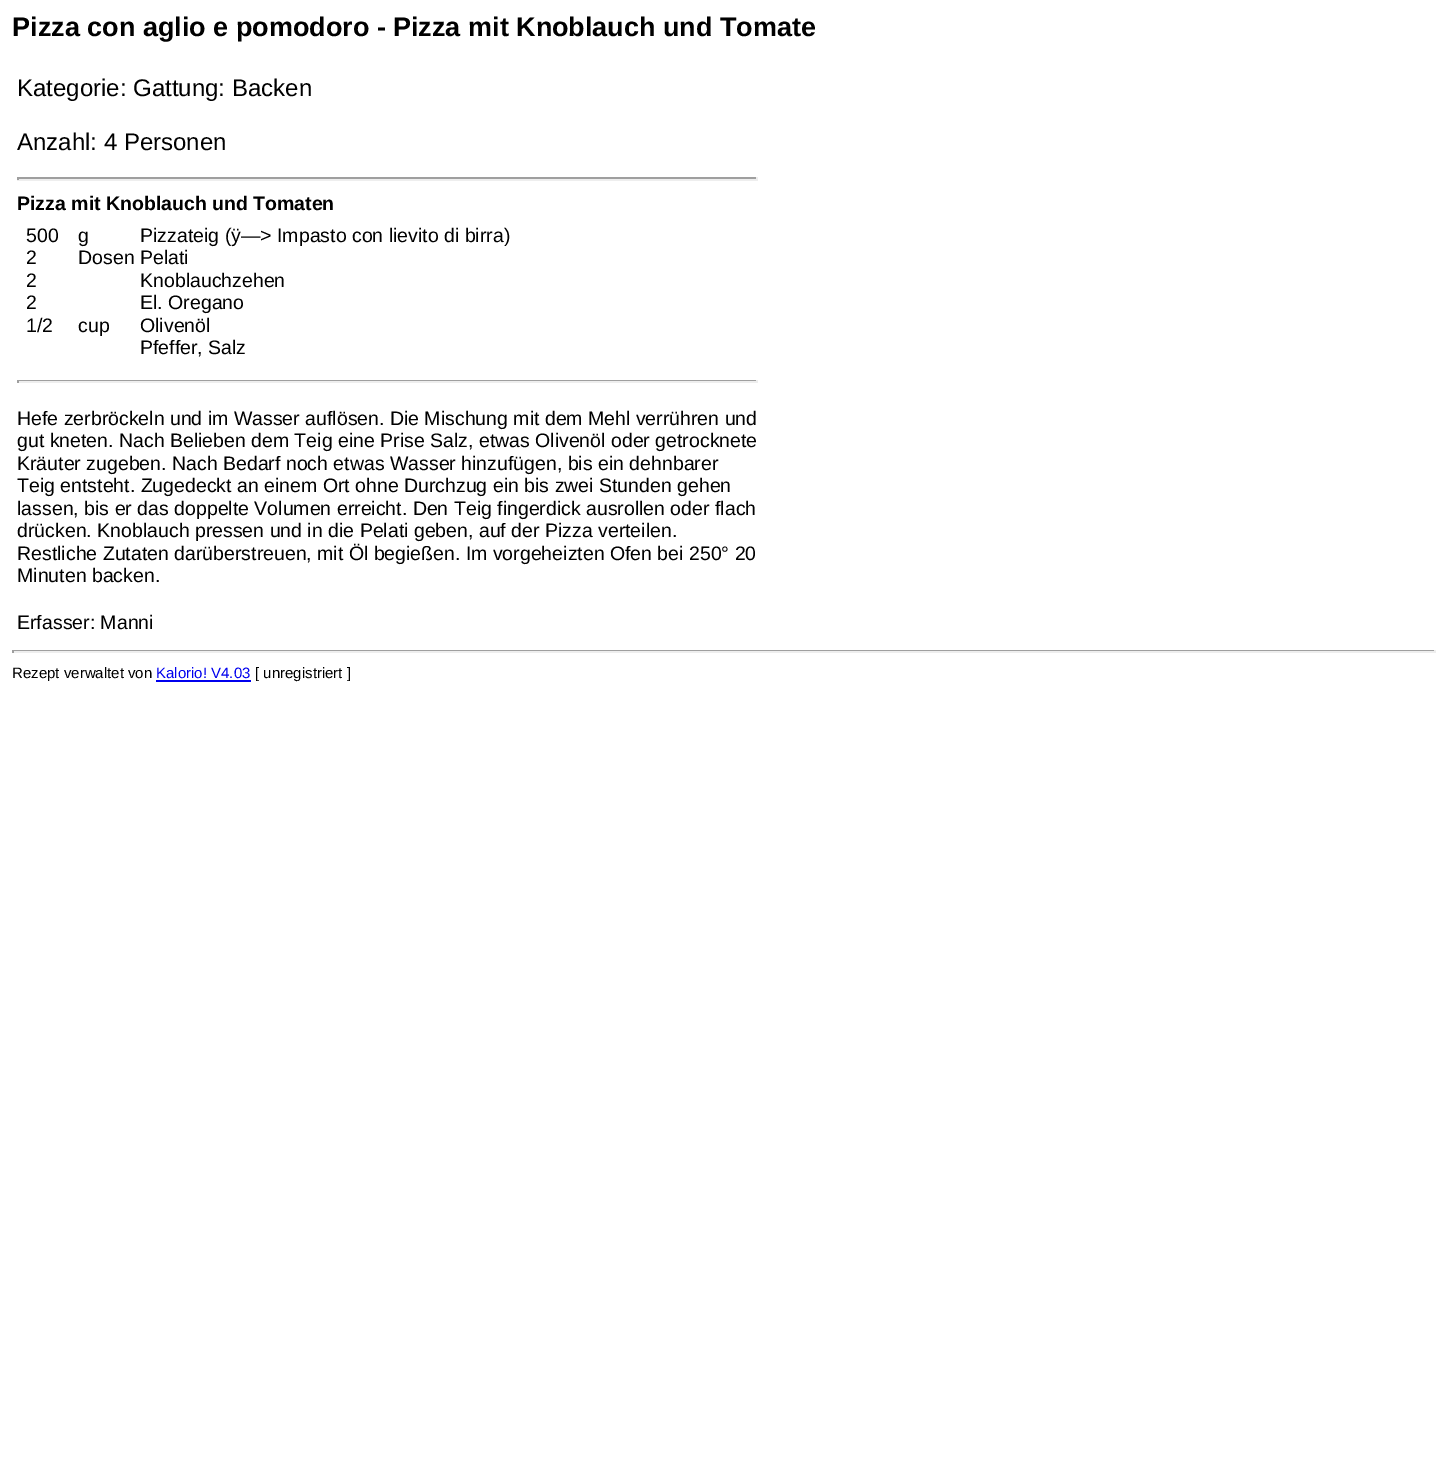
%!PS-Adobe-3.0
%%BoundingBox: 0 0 1447 1470
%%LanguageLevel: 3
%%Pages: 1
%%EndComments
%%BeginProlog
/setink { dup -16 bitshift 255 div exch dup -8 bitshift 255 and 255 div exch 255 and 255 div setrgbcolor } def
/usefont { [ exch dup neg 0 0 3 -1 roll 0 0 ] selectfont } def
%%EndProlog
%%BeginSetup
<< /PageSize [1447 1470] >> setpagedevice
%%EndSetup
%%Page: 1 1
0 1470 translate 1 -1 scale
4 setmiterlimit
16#FFFFFF setink
0 0 1447 1470 rectfill
/LiberationSans-Bold 27 usefont
16#000000 setink
12 36 moveto (Pizza con aglio e pomodoro - Pizza mit Knoblauch und Tomate) show
/LiberationSans-Regular 24 usefont
17 96 moveto (Kategorie: Gattung: Backen) show
17 150 moveto (Anzahl: 4 Personen) show
[
    [17 177 741 2 16#9F9F9F]
    [756 177 2 3 16#EEEEEE]
    [17 179 741 2 16#EEEEEE]
    [17 177 2 3 16#9F9F9F]
] { aload pop setink rectfill } forall
/LiberationSans-Bold 19.5 usefont
16#000000 setink
17 210 moveto (Pizza mit Knoblauch und Tomaten) show
/LiberationSans-Regular 19.5 usefont
[
    [(500) 26 242]
    [(2) 26 264]
    [(2) 26 287]
    [(2) 26 309]
    [(1/2) 26 332]
    [(g) 78 242]
    [(Dosen) 78 264]
    [(cup) 78 332]
    [(Pizzateig \(ÿ—> Impasto con lievito di birra\)) 140 242]
    [(Pelati) 140 264]
    [(Knoblauchzehen) 140 287]
    [(El. Oregano) 140 309]
    [(Olivenöl) 140 332]
    [(Pfeffer, Salz) 140 354]
] { aload pop moveto show } forall
[
    [17 380 741 1 16#9F9F9F]
    [756 380 2 3 16#EEEEEE]
    [17 381 741 2 16#EEEEEE]
    [17 380 2 3 16#9F9F9F]
] { aload pop setink rectfill } forall
16#000000 setink
[
    [(Hefe zerbröckeln und im Wasser auflösen. Die Mischung mit dem Mehl verrühren und) 17 425]
    [(gut kneten. Nach Belieben dem Teig eine Prise Salz, etwas Olivenöl oder getrocknete) 17 447]
    [(Kräuter zugeben. Nach Bedarf noch etwas Wasser hinzufügen, bis ein dehnbarer) 17 470]
    [(Teig entsteht. Zugedeckt an einem Ort ohne Durchzug ein bis zwei Stunden gehen) 17 492]
    [(lassen, bis er das doppelte Volumen erreicht. Den Teig fingerdick ausrollen oder flach) 17 515]
    [(drücken. Knoblauch pressen und in die Pelati geben, auf der Pizza verteilen.) 17 537]
    [(Restliche Zutaten darüberstreuen, mit Öl begießen. Im vorgeheizten Ofen bei 250° 20) 17 560]
    [(Minuten backen.) 17 582]
    [(Erfasser: Manni) 17 629]
] { aload pop moveto show } forall
[
    [12 650 1424 1 16#9F9F9F]
    [1434 650 2 3 16#EEEEEE]
    [12 651 1424 2 16#EEEEEE]
    [12 650 2 3 16#9F9F9F]
] { aload pop setink rectfill } forall
/LiberationSans-Regular 15 usefont
16#000000 setink
12 678 moveto (Rezept verwaltet von) show
16#0000EE setink
156 678 moveto (Kalorio! V4.03) show
156 680 95 2 rectfill
16#000000 setink
255 678 moveto ([ unregistriert ]) show
showpage
%%EOF
